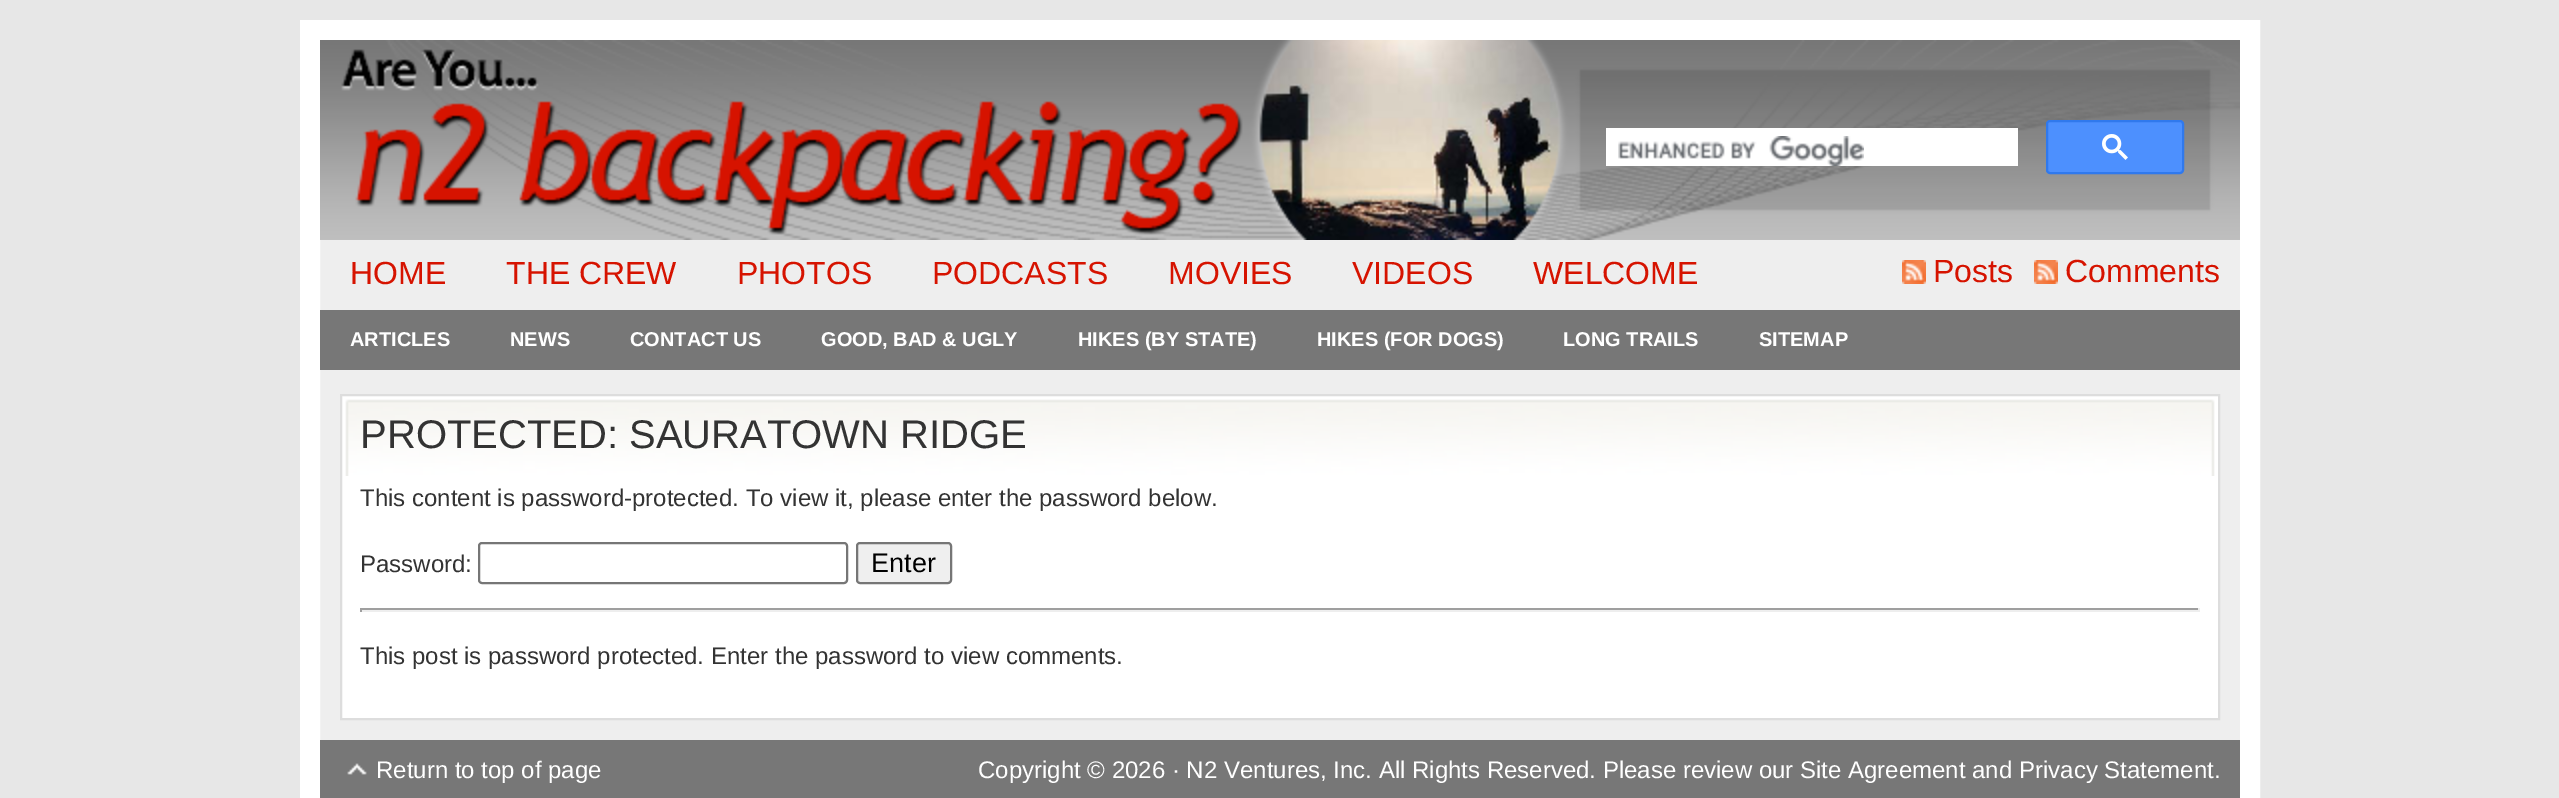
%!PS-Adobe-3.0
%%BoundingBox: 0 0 2559 798
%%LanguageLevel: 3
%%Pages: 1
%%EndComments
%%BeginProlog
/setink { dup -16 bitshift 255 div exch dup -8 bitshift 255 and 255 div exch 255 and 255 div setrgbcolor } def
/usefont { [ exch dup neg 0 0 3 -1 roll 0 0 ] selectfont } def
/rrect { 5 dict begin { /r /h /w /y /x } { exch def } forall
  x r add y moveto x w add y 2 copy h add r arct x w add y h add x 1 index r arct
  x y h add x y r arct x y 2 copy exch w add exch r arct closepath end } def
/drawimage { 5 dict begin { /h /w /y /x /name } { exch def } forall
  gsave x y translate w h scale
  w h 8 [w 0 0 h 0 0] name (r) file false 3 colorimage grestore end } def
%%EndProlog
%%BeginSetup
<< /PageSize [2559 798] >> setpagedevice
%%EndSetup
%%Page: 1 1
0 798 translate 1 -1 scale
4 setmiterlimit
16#E7E7E7 setink
0 0 2559 798 rectfill
16#EEEEEE setink
320 240 1920 500 rectfill
16#FFFFFF setink
20 setlinewidth
310 30 1940 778 rectstroke
(img1.raw) 320 40 1920 200 drawimage
1606 128 412 38 rectfill
(img2.raw) 1618 136 246 30 drawimage
16#4D90FE setink
2047 121 136 52 3 rrect gsave fill grestore
16#3079ED setink
2 setlinewidth
stroke
(img3.raw) 2102 134 26 26 drawimage
/LiberationSans-Regular 32 usefont
16#D61300 setink
[
    [(HOME) 350 284]
    [(THE CREW) 506 284]
    [(PHOTOS) 737 284]
    [(PODCASTS) 932 284]
    [(MOVIES) 1168 284]
    [(VIDEOS) 1352 284]
    [(WELCOME) 1533 284]
] { aload pop moveto show } forall
(img4.raw) 1902 260 24 24 drawimage
1933 282 moveto (Posts) show
(img4.raw) 2034 260 24 24 drawimage
2065 282 moveto (Comments) show
16#777777 setink
320 310 1920 60 rectfill
/LiberationSans-Bold 20 usefont
16#FFFFFF setink
[
    [(ARTICLES) 350 346]
    [(NEWS) 510 346]
    [(CONTACT US) 630 346]
    [(GOOD, BAD & UGLY) 821 346]
    [(HIKES \(BY STATE\)) 1078 346]
    [(HIKES \(FOR DOGS\)) 1317 346]
    [(LONG TRAILS) 1563 346]
    [(SITEMAP) 1759 346]
] { aload pop moveto show } forall
342 396 1876 322 rectfill
(img5.raw) 345 399 1870 77 drawimage
16#DDDDDD setink
341 395 1878 324 rectstroke
/LiberationSans-Regular 40 usefont
16#333333 setink
360 448 moveto (PROTECTED: SAURATOWN RIDGE) show
/LiberationSans-Regular 24 usefont
360 506 moveto (This content is password-protected. To view it, please enter the password below.) show
360 572 moveto (Password:) show
16#767676 setink
479 543 368 40 3 rrect stroke
16#EFEFEF setink
857 543 94 40 3 rrect gsave fill grestore
16#767676 setink
stroke
/LiberationSans-Regular 27 usefont
16#000000 setink
871 572 moveto (Enter) show
[
    [360 608 1840 2 16#9F9F9F]
    [2198 608 2 4 16#EEEEEE]
    [360 610 1840 2 16#EEEEEE]
    [360 608 2 4 16#9F9F9F]
] { aload pop setink rectfill } forall
/LiberationSans-Regular 24 usefont
16#333333 setink
360 664 moveto (This post is password protected. Enter the password to view comments.) show
16#777777 setink
320 740 1920 58 rectfill
(img6.raw) 347 763 20 12 drawimage
16#FFFFFF setink
376 778 moveto (Return to top of page) show
978 778 moveto (Copyright © 2026 · N2 Ventures, Inc. All Rights Reserved. Please review our Site Agreement and Privacy Statement.) show
showpage
%%EOF
